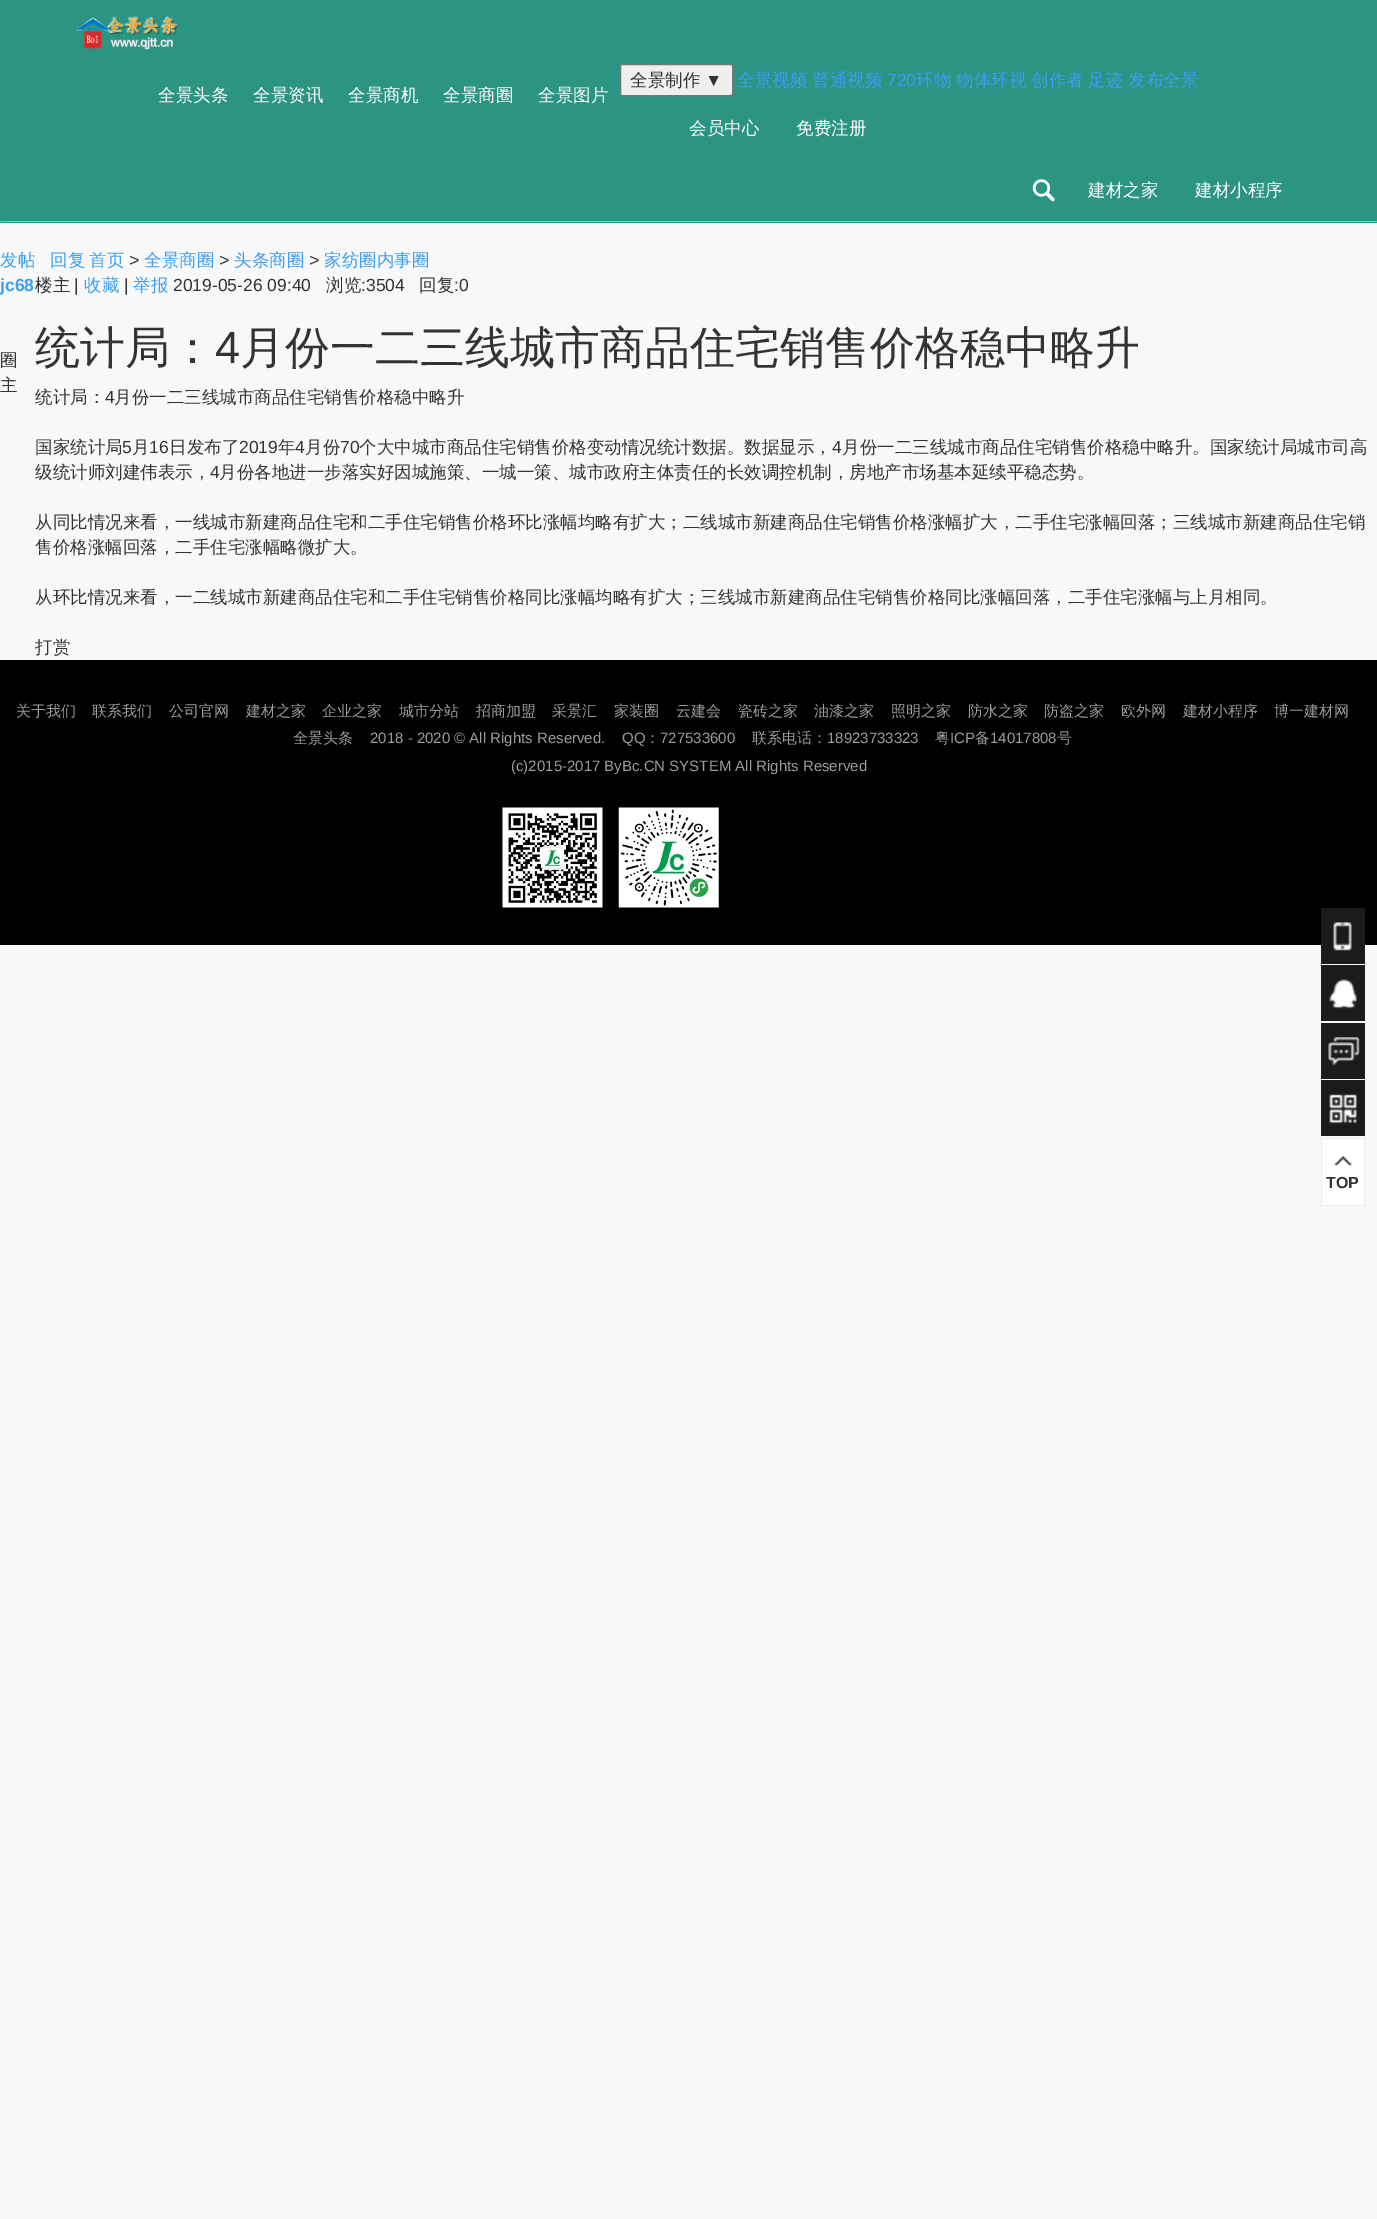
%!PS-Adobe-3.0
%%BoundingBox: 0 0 1377 2219
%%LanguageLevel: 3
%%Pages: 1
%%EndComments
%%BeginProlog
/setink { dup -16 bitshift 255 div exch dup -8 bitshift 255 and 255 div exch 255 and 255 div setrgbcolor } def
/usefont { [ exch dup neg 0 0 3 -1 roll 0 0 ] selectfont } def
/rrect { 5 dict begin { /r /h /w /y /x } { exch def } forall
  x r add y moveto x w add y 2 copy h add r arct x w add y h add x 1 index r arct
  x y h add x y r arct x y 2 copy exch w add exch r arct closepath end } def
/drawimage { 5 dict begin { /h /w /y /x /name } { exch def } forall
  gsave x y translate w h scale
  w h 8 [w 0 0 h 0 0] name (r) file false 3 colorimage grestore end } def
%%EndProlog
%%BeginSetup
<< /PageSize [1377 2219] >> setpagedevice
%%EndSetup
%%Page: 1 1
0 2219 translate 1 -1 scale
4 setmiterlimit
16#F8F8F8 setink
0 0 1377 2219 rectfill
16#2C9482 setink
0 0 1377 223 rectfill
16#B3B1B1 setink
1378 222 moveto 0 222 lineto 1 221 lineto 1376 221 lineto closepath fill
(img1.raw) 76 16 103 34 drawimage
16#EFEFEF setink
620.5 64.5 112 31 2 rrect gsave fill grestore
16#767676 setink
stroke
/WenQuanYiZenHei-Medium 17.5 usefont
16#333333 setink
630 86 moveto (全景制作) show
/LiberationSans-Regular 17.5 usefont
705 86 moveto (▼) show
/WenQuanYiZenHei-Medium 17.5 usefont
16#3B9FF3 setink
737 86 moveto (全景视频) show
812 86 moveto (普通视频) show
/LiberationSans-Regular 17.5 usefont
887 86 moveto (720) show
/WenQuanYiZenHei-Medium 17.5 usefont
[
    [(环物) 916 86]
    [(物体环视) 956 86]
    [(创作者) 1031 86]
    [(足迹) 1088 86]
    [(发布全景) 1128 86]
] { aload pop moveto show } forall
16#FFFFFF setink
[
    [(全景头条) 158 101]
    [(全景资讯) 253 101]
    [(全景商机) 348 101]
    [(全景商圈) 443 101]
    [(全景图片) 538 101]
    [(会员中心) 689 134]
    [(免费注册) 796 134]
] { aload pop moveto show } forall
(img2.raw) 1032 179 23 23 drawimage
1088 196 moveto (建材之家) show
1195 196 moveto (建材小程序) show
16#3B9FF3 setink
[
    [(发帖) 0 266]
    [(回复) 50 266]
    [(首页) 89 266]
] { aload pop moveto show } forall
/LiberationSans-Italic 17.5 usefont
16#333333 setink
129 266 moveto (>) show
/WenQuanYiZenHei-Medium 17.5 usefont
16#3B9FF3 setink
144 266 moveto (全景商圈) show
/LiberationSans-Italic 17.5 usefont
16#333333 setink
219 266 moveto (>) show
/WenQuanYiZenHei-Medium 17.5 usefont
16#3B9FF3 setink
234 266 moveto (头条商圈) show
/LiberationSans-Italic 17.5 usefont
16#333333 setink
309 266 moveto (>) show
/WenQuanYiZenHei-Medium 17.5 usefont
16#3B9FF3 setink
324 266 moveto (家纺圈内事圈) show
/LiberationSans-Bold 17.5 usefont
0 291 moveto (jc68) show
/WenQuanYiZenHei-Medium 17.5 usefont
16#333333 setink
[
    [(圈) 0 366]
    [(主) 0 391]
    [(楼主) 35 291]
] { aload pop moveto show } forall
/LiberationSans-Regular 17.5 usefont
74 291 moveto (|) show
/WenQuanYiZenHei-Medium 17.5 usefont
16#3B9FF3 setink
84 291 moveto (收藏) show
/LiberationSans-Regular 17.5 usefont
16#333333 setink
124 291 moveto (|) show
/WenQuanYiZenHei-Medium 17.5 usefont
16#3B9FF3 setink
133 291 moveto (举报) show
/LiberationSans-Regular 17.5 usefont
16#333333 setink
173 291 moveto (2019-05-26 09:40) show
/WenQuanYiZenHei-Medium 17.5 usefont
326 291 moveto (浏览) show
/LiberationSans-Regular 17.5 usefont
361 291 moveto (:3504) show
/WenQuanYiZenHei-Medium 17.5 usefont
419 291 moveto (回复) show
/LiberationSans-Regular 17.5 usefont
454 291 moveto (:0) show
/WenQuanYiZenHei-Medium 45 usefont
35 363 moveto (统计局：) show
/LiberationSans-Regular 45 usefont
215 363 moveto (4) show
/WenQuanYiZenHei-Medium 45 usefont
240 363 moveto (月份一二三线城市商品住宅销售价格稳中略升) show
/WenQuanYiZenHei-Medium 17.5 usefont
35 403 moveto (统计局：) show
/LiberationSans-Regular 17.5 usefont
105 403 moveto (4) show
/WenQuanYiZenHei-Medium 17.5 usefont
114 403 moveto (月份一二三线城市商品住宅销售价格稳中略升) show
35 453 moveto (国家统计局) show
/LiberationSans-Regular 17.5 usefont
122 453 moveto (5) show
/WenQuanYiZenHei-Medium 17.5 usefont
132 453 moveto (月) show
/LiberationSans-Regular 17.5 usefont
149 453 moveto (16) show
/WenQuanYiZenHei-Medium 17.5 usefont
169 453 moveto (日发布了) show
/LiberationSans-Regular 17.5 usefont
239 453 moveto (2019) show
/WenQuanYiZenHei-Medium 17.5 usefont
278 453 moveto (年) show
/LiberationSans-Regular 17.5 usefont
295 453 moveto (4) show
/WenQuanYiZenHei-Medium 17.5 usefont
305 453 moveto (月份) show
/LiberationSans-Regular 17.5 usefont
340 453 moveto (70) show
/WenQuanYiZenHei-Medium 17.5 usefont
359 453 moveto (个大中城市商品住宅销售价格变动情况统计数据。数据显示，) show
/LiberationSans-Regular 17.5 usefont
832 453 moveto (4) show
/WenQuanYiZenHei-Medium 17.5 usefont
842 453 moveto (月份一二三线城市商品住宅销售价格稳中略升。国家统计局城市司高) show
35 478 moveto (级统计师刘建伟表示，) show
/LiberationSans-Regular 17.5 usefont
210 478 moveto (4) show
/WenQuanYiZenHei-Medium 17.5 usefont
[
    [(月份各地进一步落实好因城施策、一城一策、城市政府主体责任的长效调控机制，房地产市场基本延续平稳态势。) 219 478]
    [(从同比情况来看，一线城市新建商品住宅和二手住宅销售价格环比涨幅均略有扩大；二线城市新建商品住宅销售价格涨幅扩大，二手住宅涨幅回落；三线城市新建商品住宅销) 35 528]
    [(售价格涨幅回落，二手住宅涨幅略微扩大。) 35 553]
    [(从环比情况来看，一二线城市新建商品住宅和二手住宅销售价格同比涨幅均略有扩大；三线城市新建商品住宅销售价格同比涨幅回落，二手住宅涨幅与上月相同。) 35 603]
    [(打赏) 35 653]
] { aload pop moveto show } forall
16#000000 setink
0 660 1377 285 rectfill
/WenQuanYiZenHei-Medium 15 usefont
16#9C9C9C setink
[
    [(关于我们) 16 716]
    [(联系我们) 92 716]
    [(公司官网) 169 716]
    [(建材之家) 246 716]
    [(企业之家) 322 716]
    [(城市分站) 399 716]
    [(招商加盟) 476 716]
    [(采景汇) 552 716]
    [(家装圈) 614 716]
    [(云建会) 676 716]
    [(瓷砖之家) 738 716]
    [(油漆之家) 814 716]
    [(照明之家) 891 716]
    [(防水之家) 968 716]
    [(防盗之家) 1044 716]
    [(欧外网) 1121 716]
    [(建材小程序) 1183 716]
    [(博一建材网) 1274 716]
    [(全景头条) 293 743]
] { aload pop moveto show } forall
/LiberationSans-Regular 15 usefont
370 743 moveto (2018 - 2020 © All Rights Reserved.) show
622 743 moveto (QQ) show
/WenQuanYiZenHei-Medium 15 usefont
645 743 moveto (：) show
/LiberationSans-Regular 15 usefont
660 743 moveto (727533600) show
/WenQuanYiZenHei-Medium 15 usefont
752 743 moveto (联系电话：) show
/LiberationSans-Regular 15 usefont
827 743 moveto (18923733323) show
/WenQuanYiZenHei-Medium 15 usefont
935 743 moveto (粤) show
/LiberationSans-Regular 15 usefont
950 743 moveto (ICP) show
/WenQuanYiZenHei-Medium 15 usefont
975 743 moveto (备) show
/LiberationSans-Regular 15 usefont
990 743 moveto (14017808) show
/WenQuanYiZenHei-Medium 15 usefont
1057 743 moveto (号) show
/LiberationSans-Regular 15 usefont
511 771 moveto (\(c\)2015-2017 ByBc.CN SYSTEM All Rights Reserved) show
(img3.raw) 502 807 101 101 drawimage
(img4.raw) 618 807 101 101 drawimage
16#1B1B1D setink
1321 908 44 56 rectfill
(img5.raw) 1333 922 19 29 drawimage
1321 965 44 56 rectfill
(img6.raw) 1329 979 28 30 drawimage
1321 1023 44 56 rectfill
(img7.raw) 1328 1037 32 29 drawimage
1321 1080 44 56 rectfill
(img8.raw) 1329 1094 28 30 drawimage
16#FFFFFF setink
1321.5 1138.5 moveto 1364.5 1138.5 lineto 1364.5 1205.5 lineto 1321.5 1205.5 lineto closepath gsave fill grestore
16#EDEDED setink
stroke
(img9.raw) 1334 1156 18 10 drawimage
/LiberationSans-Bold 16 usefont
16#333333 setink
1326 1188 moveto (TOP) show
showpage
%%EOF
